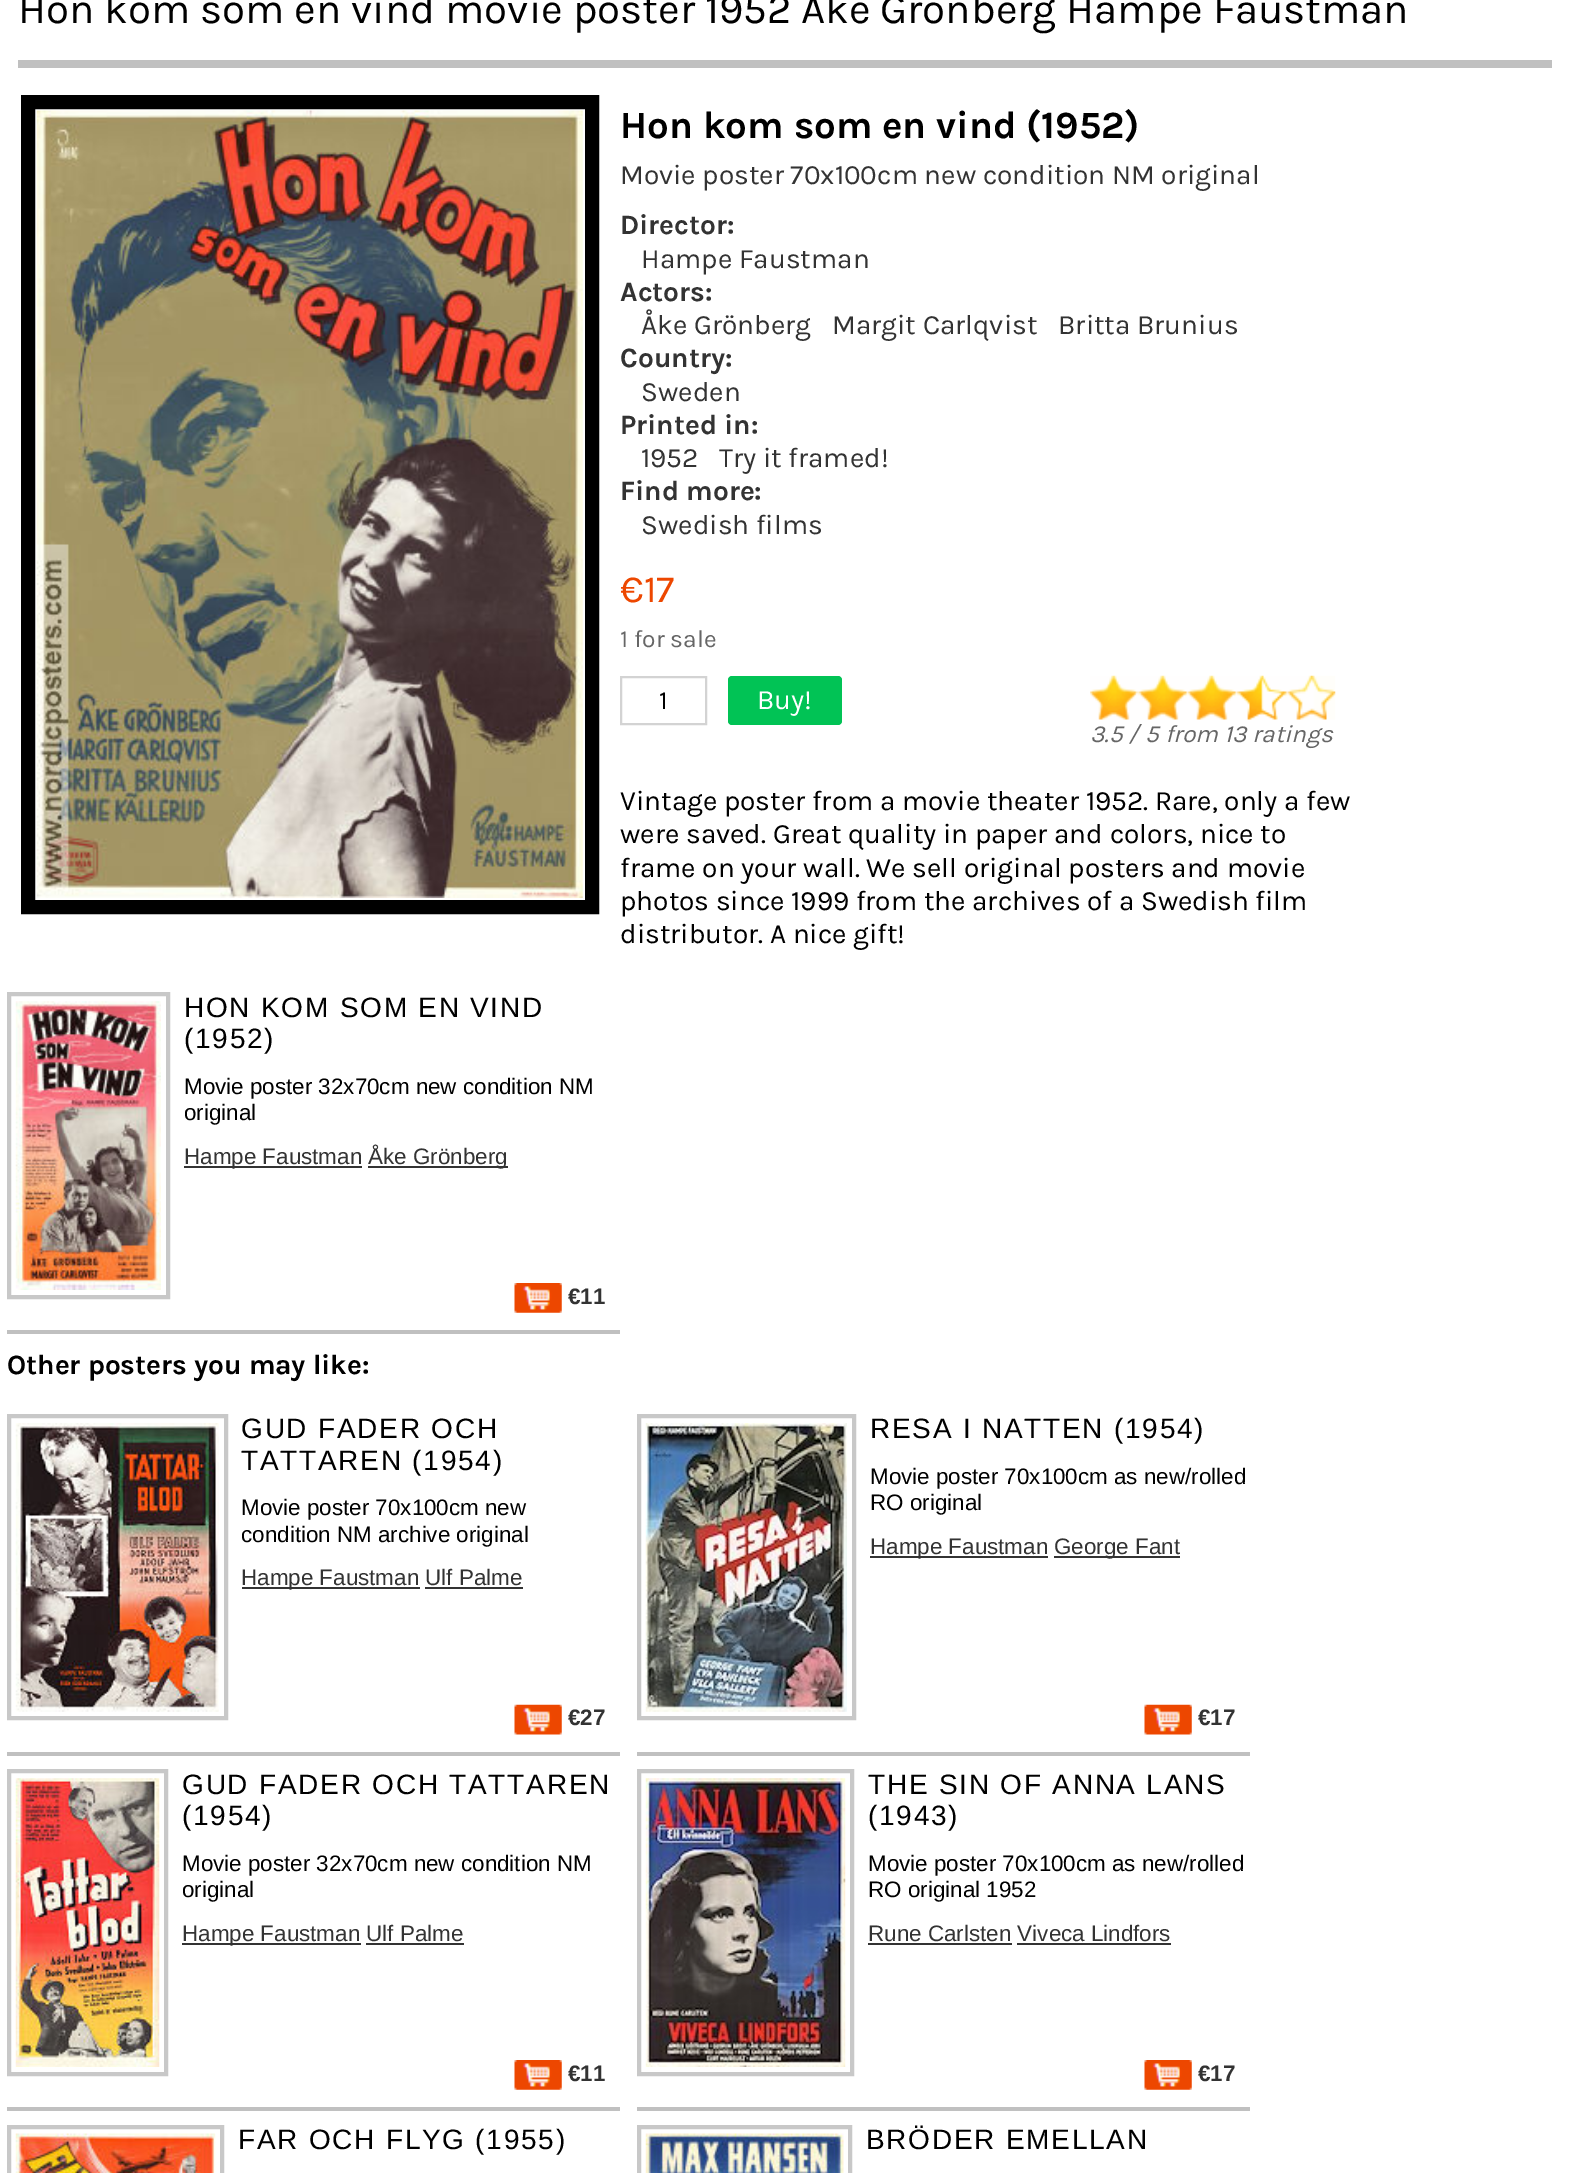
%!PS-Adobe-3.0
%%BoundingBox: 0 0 1577 2173
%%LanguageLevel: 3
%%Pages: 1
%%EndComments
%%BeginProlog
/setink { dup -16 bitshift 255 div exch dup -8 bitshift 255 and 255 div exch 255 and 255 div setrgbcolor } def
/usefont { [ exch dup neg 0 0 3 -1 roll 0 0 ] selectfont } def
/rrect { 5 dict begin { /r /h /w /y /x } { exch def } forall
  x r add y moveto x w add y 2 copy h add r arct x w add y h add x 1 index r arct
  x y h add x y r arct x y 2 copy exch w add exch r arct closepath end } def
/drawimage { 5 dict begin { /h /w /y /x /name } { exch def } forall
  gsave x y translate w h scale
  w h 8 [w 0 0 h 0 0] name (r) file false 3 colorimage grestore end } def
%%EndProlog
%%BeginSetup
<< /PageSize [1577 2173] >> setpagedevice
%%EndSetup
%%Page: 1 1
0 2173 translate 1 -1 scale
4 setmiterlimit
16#FFFFFF setink
0 0 1577 2173 rectfill
16#C0C0C0 setink
18 60 1534 8 rectfill
/Karla-Regular 42 usefont
16#000000 setink
18 23 moveto (Hon kom som en vind movie poster 1952 Åke Grönberg Hampe Faustman) show
14 setlinewidth
28 102 564 805 rectstroke
(img1.raw) 36 110 547 788 drawimage
/Karla-Bold 38.5 usefont
620 138 moveto (Hon kom som en vind \(1952\)) show
/Karla-Regular 28 usefont
16#333333 setink
620 184 moveto (Movie poster 70x100cm new condition NM original) show
/Karla-Bold 28 usefont
620 234 moveto (Director:) show
/Karla-Regular 28 usefont
641 268 moveto (Hampe Faustman) show
/Karla-Bold 28 usefont
620 301 moveto (Actors:) show
/Karla-Regular 28 usefont
[
    [(Åke Grönberg) 641 334]
    [(Margit Carlqvist) 832 334]
    [(Britta Brunius) 1058 334]
] { aload pop moveto show } forall
/Karla-Bold 28 usefont
620 367 moveto (Country:) show
/Karla-Regular 28 usefont
641 401 moveto (Sweden) show
/Karla-Bold 28 usefont
620 434 moveto (Printed in:) show
/Karla-Regular 28 usefont
641 467 moveto (1952) show
719 467 moveto (Try it framed!) show
/Karla-Bold 28 usefont
620 500 moveto (Find more:) show
/Karla-Regular 28 usefont
641 534 moveto (Swedish films) show
/Karla-Regular 38.5 usefont
16#ED4700 setink
620 602 moveto (€17) show
/Karla-Regular 24.5 usefont
16#666666 setink
620 647 moveto (1 for sale) show
16#D3D3D3 setink
2 setlinewidth
621 677 85 47 rectstroke
/Karla-Regular 26 usefont
16#000000 setink
659 709 moveto (1) show
16#01C355 setink
728 676 114 49 4 rrect fill
/Karla-Regular 28 usefont
16#FFFFFF setink
757 709 moveto (Buy!) show
(img2.raw) 1090 675 246 45 drawimage
/Karla-Italic 24.5 usefont
16#666666 setink
1090 742 moveto (3.5 / 5 from 13 ratings) show
/Karla-Regular 28 usefont
16#000000 setink
[
    [(Vintage poster from a movie theater 1952. Rare, only a few) 620 810]
    [(were saved. Great quality in paper and colors, nice to) 620 843]
    [(frame on your wall. We sell original posters and movie) 620 877]
    [(photos since 1999 from the archives of a Swedish film) 620 910]
    [(distributor. A nice gift!) 620 943]
] { aload pop moveto show } forall
16#C0C0C0 setink
7 1330 613 4 rectfill
16#C8C8C8 setink
4 setlinewidth
9 994 159 303 rectstroke
(img3.raw) 15 1001 146 289 drawimage
/LiberationSans-Regular 28 usefont
16#000000 setink
184 1017 moveto 1.75 0 (HON KOM SOM EN VIND) ashow
184 1048 moveto 1.75 0 (\(1952\)) ashow
/LiberationSans-Regular 22.4 usefont
184 1094 moveto (Movie poster 32x70cm new condition NM) show
184 1120 moveto (original) show
16#333333 setink
184 1166 178 2 rectfill
184 1164 moveto (Hampe Faustman) show
368 1166 140 2 rectfill
368 1164 moveto (Åke Grönberg) show
(img4.raw) 514 1283 48 30 drawimage
/LiberationSans-Bold 22.4 usefont
568 1304 moveto (€11) show
/Karla-Bold 28 usefont
16#000000 setink
7 1374 moveto (Other posters you may like:) show
16#C0C0C0 setink
7 1752 613 4 rectfill
16#C8C8C8 setink
9 1416 217 302 rectstroke
(img5.raw) 15 1423 204 289 drawimage
/LiberationSans-Regular 28 usefont
16#000000 setink
241 1438 moveto 1.75 0 (GUD FADER OCH) ashow
241 1470 moveto 1.75 0 (TATTAREN \(1954\)) ashow
/LiberationSans-Regular 22.4 usefont
241 1515 moveto (Movie poster 70x100cm new) show
241 1542 moveto (condition NM archive original) show
16#333333 setink
242 1587 178 2 rectfill
241 1585 moveto (Hampe Faustman Ulf Palme) show
425 1587 98 2 rectfill
(img6.raw) 514 1704 48 31 drawimage
/LiberationSans-Bold 22.4 usefont
568 1725 moveto (€27) show
16#C0C0C0 setink
637 1752 613 4 rectfill
16#C8C8C8 setink
639 1416 215 302 rectstroke
(img7.raw) 645 1423 202 289 drawimage
/LiberationSans-Regular 28 usefont
16#000000 setink
870 1438 moveto 1.75 0 (RESA I NATTEN \(1954\)) ashow
/LiberationSans-Regular 22.4 usefont
870 1484 moveto (Movie poster 70x100cm as new/rolled) show
870 1510 moveto (RO original) show
16#333333 setink
870 1556 178 2 rectfill
870 1554 moveto (Hampe Faustman) show
1054 1556 126 2 rectfill
1054 1554 moveto (George Fant) show
(img8.raw) 1144 1704 48 31 drawimage
/LiberationSans-Bold 22.4 usefont
1198 1725 moveto (€17) show
16#C0C0C0 setink
7 2107 613 4 rectfill
16#C8C8C8 setink
9 1771 157 303 rectstroke
(img9.raw) 15 1778 145 289 drawimage
/LiberationSans-Regular 28 usefont
16#000000 setink
182 1794 moveto 1.75 0 (GUD FADER OCH TATTAREN) ashow
182 1825 moveto 1.75 0 (\(1954\)) ashow
/LiberationSans-Regular 22.4 usefont
182 1871 moveto (Movie poster 32x70cm new condition NM) show
182 1897 moveto (original) show
16#333333 setink
182 1943 179 2 rectfill
182 1941 moveto (Hampe Faustman Ulf Palme) show
366 1943 98 2 rectfill
(img4.raw) 514 2060 48 30 drawimage
/LiberationSans-Bold 22.4 usefont
568 2081 moveto (€11) show
16#C0C0C0 setink
637 2107 613 4 rectfill
16#C8C8C8 setink
639 1771 213 303 rectstroke
(img10.raw) 645 1778 201 289 drawimage
/LiberationSans-Regular 28 usefont
16#000000 setink
868 1794 moveto 1.75 0 (THE SIN OF ANNA LANS) ashow
868 1825 moveto 1.75 0 (\(1943\)) ashow
/LiberationSans-Regular 22.4 usefont
868 1871 moveto (Movie poster 70x100cm as new/rolled) show
868 1897 moveto (RO original 1952) show
16#333333 setink
868 1941 moveto (Rune Carlsten Viveca Lindfors) show
868 1943 144 2 rectfill
1017 1943 154 2 rectfill
(img11.raw) 1144 2060 48 30 drawimage
/LiberationSans-Bold 22.4 usefont
1198 2081 moveto (€17) show
16#C8C8C8 setink
9 2127 213 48 rectstroke
(img12.raw) 15 2133 201 40 drawimage
/LiberationSans-Regular 28 usefont
16#000000 setink
238 2149 moveto 1.75 0 (FAR OCH FLYG \(1955\)) ashow
16#C8C8C8 setink
639 2127 211 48 rectstroke
(img13.raw) 645 2133 199 40 drawimage
16#000000 setink
866 2149 moveto 1.75 0 (BRÖDER EMELLAN) ashow
showpage
%%EOF
